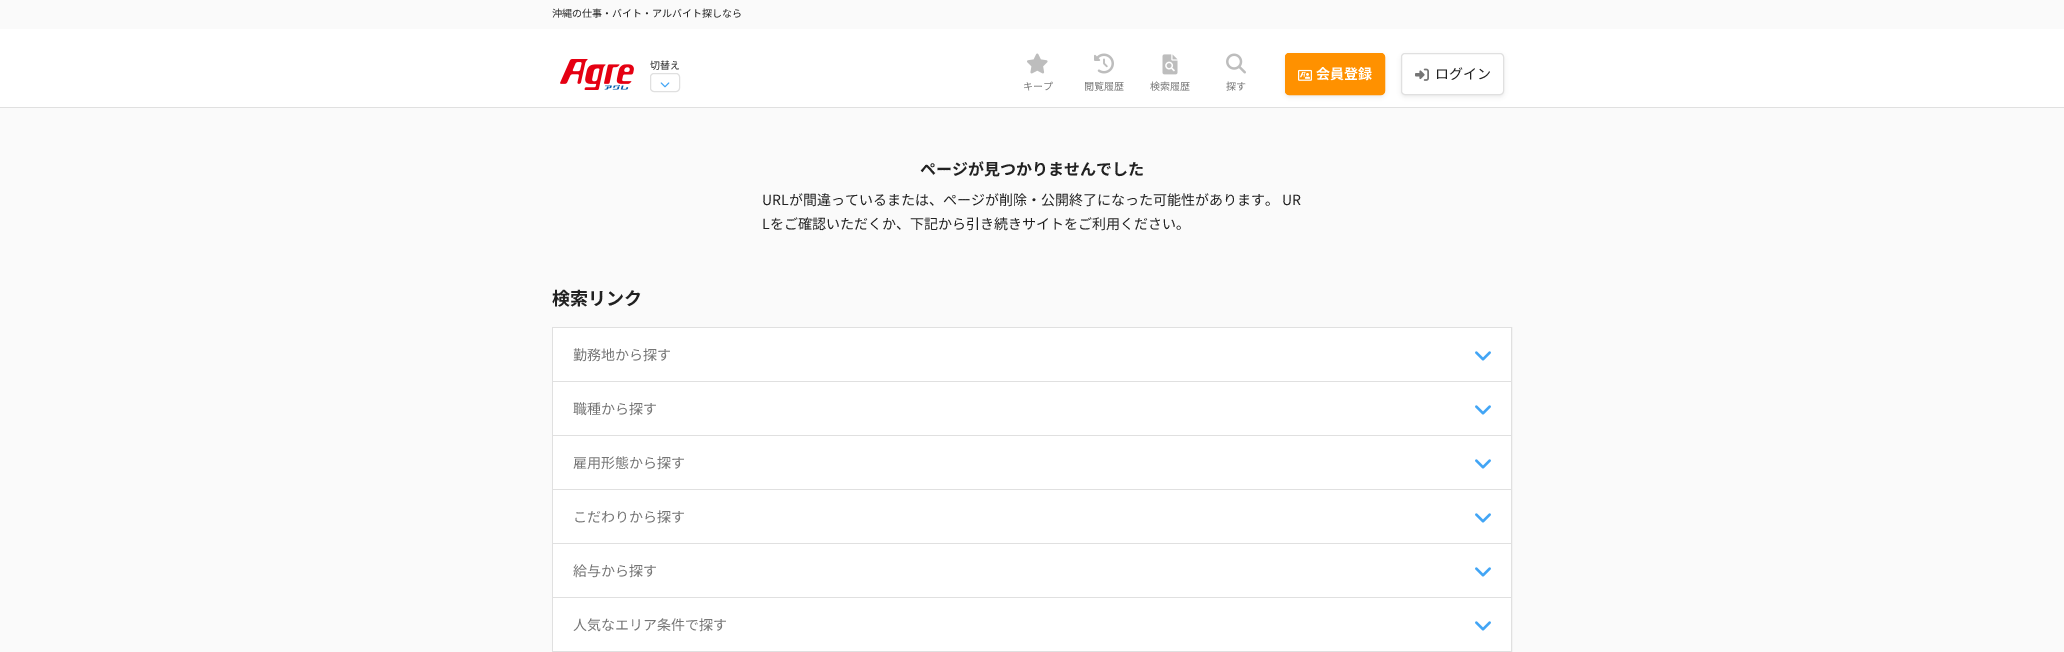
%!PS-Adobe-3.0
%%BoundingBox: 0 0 2064 652
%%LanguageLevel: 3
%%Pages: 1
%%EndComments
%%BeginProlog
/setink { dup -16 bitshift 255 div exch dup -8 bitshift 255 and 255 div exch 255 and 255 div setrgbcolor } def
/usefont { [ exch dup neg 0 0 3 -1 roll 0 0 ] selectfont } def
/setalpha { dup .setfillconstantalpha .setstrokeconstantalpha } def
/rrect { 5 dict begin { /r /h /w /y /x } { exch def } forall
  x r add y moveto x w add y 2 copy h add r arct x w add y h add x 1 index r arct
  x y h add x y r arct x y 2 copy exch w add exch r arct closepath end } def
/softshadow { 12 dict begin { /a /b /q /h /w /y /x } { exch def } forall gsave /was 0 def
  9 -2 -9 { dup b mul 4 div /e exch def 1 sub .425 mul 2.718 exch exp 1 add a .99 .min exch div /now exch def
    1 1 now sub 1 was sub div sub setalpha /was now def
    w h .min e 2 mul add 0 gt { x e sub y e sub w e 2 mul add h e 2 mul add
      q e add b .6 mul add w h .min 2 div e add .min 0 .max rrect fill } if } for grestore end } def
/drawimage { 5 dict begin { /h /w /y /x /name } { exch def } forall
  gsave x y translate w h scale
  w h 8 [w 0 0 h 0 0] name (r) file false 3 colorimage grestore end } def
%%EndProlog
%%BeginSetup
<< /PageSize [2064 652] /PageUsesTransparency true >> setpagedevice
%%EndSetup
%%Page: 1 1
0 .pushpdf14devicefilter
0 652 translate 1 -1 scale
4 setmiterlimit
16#FAFAFA setink
0 0 2064 652 rectfill
16#FFFFFF setink
0 29 2064 78 rectfill
16#E0E0E0 setink
0 107 2064 1 rectfill
/NotoSansJP-Regular 10 usefont
16#212121 setink
552 17 moveto (沖縄の仕事・バイト・アルバイト探しなら) show
(img1.raw) 560 59 74 31 drawimage
650 69 moveto (切替え) show
16#E0E0E0 setink
650.5 73.5 29 18 3.5 rrect stroke
(img2.raw) 660 82 10 6 drawimage
16#000000 setink
1285 55 100 42 4 2 0.07 softshadow
16#FF9100 setink
1285.5 53.5 99 41 3.5 rrect gsave fill grestore
stroke
(img3.raw) 1298 69 14 12 drawimage
/NotoSansJP-Bold 14 usefont
16#FFFFFF setink
1316 79 moveto (会員登録) show
16#000000 setink
1401 55 103 42 4 2 0.07 softshadow
16#FFFFFF setink
1401.5 53.5 102 41 3.5 rrect gsave fill grestore
16#E0E0E0 setink
stroke
(img4.raw) 1415 68 14 13 drawimage
/NotoSansJP-Regular 14 usefont
16#212121 setink
1435 79 moveto (ログイン) show
(img5.raw) 1027 53 21 21 drawimage
/NotoSansJP-Regular 10 usefont
16#757575 setink
1023 90 moveto (キープ) show
(img6.raw) 1094 53 20 21 drawimage
1084 90 moveto (閲覧履歴) show
(img7.raw) 1162 54 16 21 drawimage
1150 90 moveto (検索履歴) show
(img8.raw) 1226 53 20 21 drawimage
1226 90 moveto (探す) show
/NotoSansJP-Bold 16 usefont
16#212121 setink
920 175 moveto (ページが見つかりませんでした) show
/NotoSansJP-Regular 14 usefont
762 205 moveto (URLが間違っているまたは、ページが削除・公開終了になった可能性があります。 UR) show
762 229 moveto (Lをご確認いただくか、下記から引き続きサイトをご利用ください。) show
/NotoSansJP-Bold 18 usefont
552 305 moveto (検索リンク) show
16#E0E0E0 setink
552.5 327.5 959 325 rectstroke
16#FFFFFF setink
553 328 958 53 rectfill
16#E0E0E0 setink
553 381 958 1 rectfill
/NotoSansJP-Regular 14 usefont
16#757575 setink
573 360 moveto (勤務地から探す) show
(img9.raw) 1475 351 16 10 drawimage
16#FFFFFF setink
553 382 958 53 rectfill
16#E0E0E0 setink
553 435 958 1 rectfill
16#757575 setink
573 414 moveto (職種から探す) show
(img9.raw) 1475 405 16 10 drawimage
16#FFFFFF setink
553 436 958 53 rectfill
16#E0E0E0 setink
553 489 958 1 rectfill
16#757575 setink
573 468 moveto (雇用形態から探す) show
(img9.raw) 1475 459 16 10 drawimage
16#FFFFFF setink
553 490 958 53 rectfill
16#E0E0E0 setink
553 543 958 1 rectfill
16#757575 setink
573 522 moveto (こだわりから探す) show
(img9.raw) 1475 513 16 10 drawimage
16#FFFFFF setink
553 544 958 53 rectfill
16#E0E0E0 setink
553 597 958 1 rectfill
16#757575 setink
573 576 moveto (給与から探す) show
(img9.raw) 1475 567 16 10 drawimage
16#FFFFFF setink
553 598 958 53 rectfill
16#E0E0E0 setink
553 651 958 1 rectfill
16#757575 setink
573 630 moveto (人気なエリア条件で探す) show
(img9.raw) 1475 621 16 10 drawimage
.poppdf14devicefilter showpage
%%EOF
